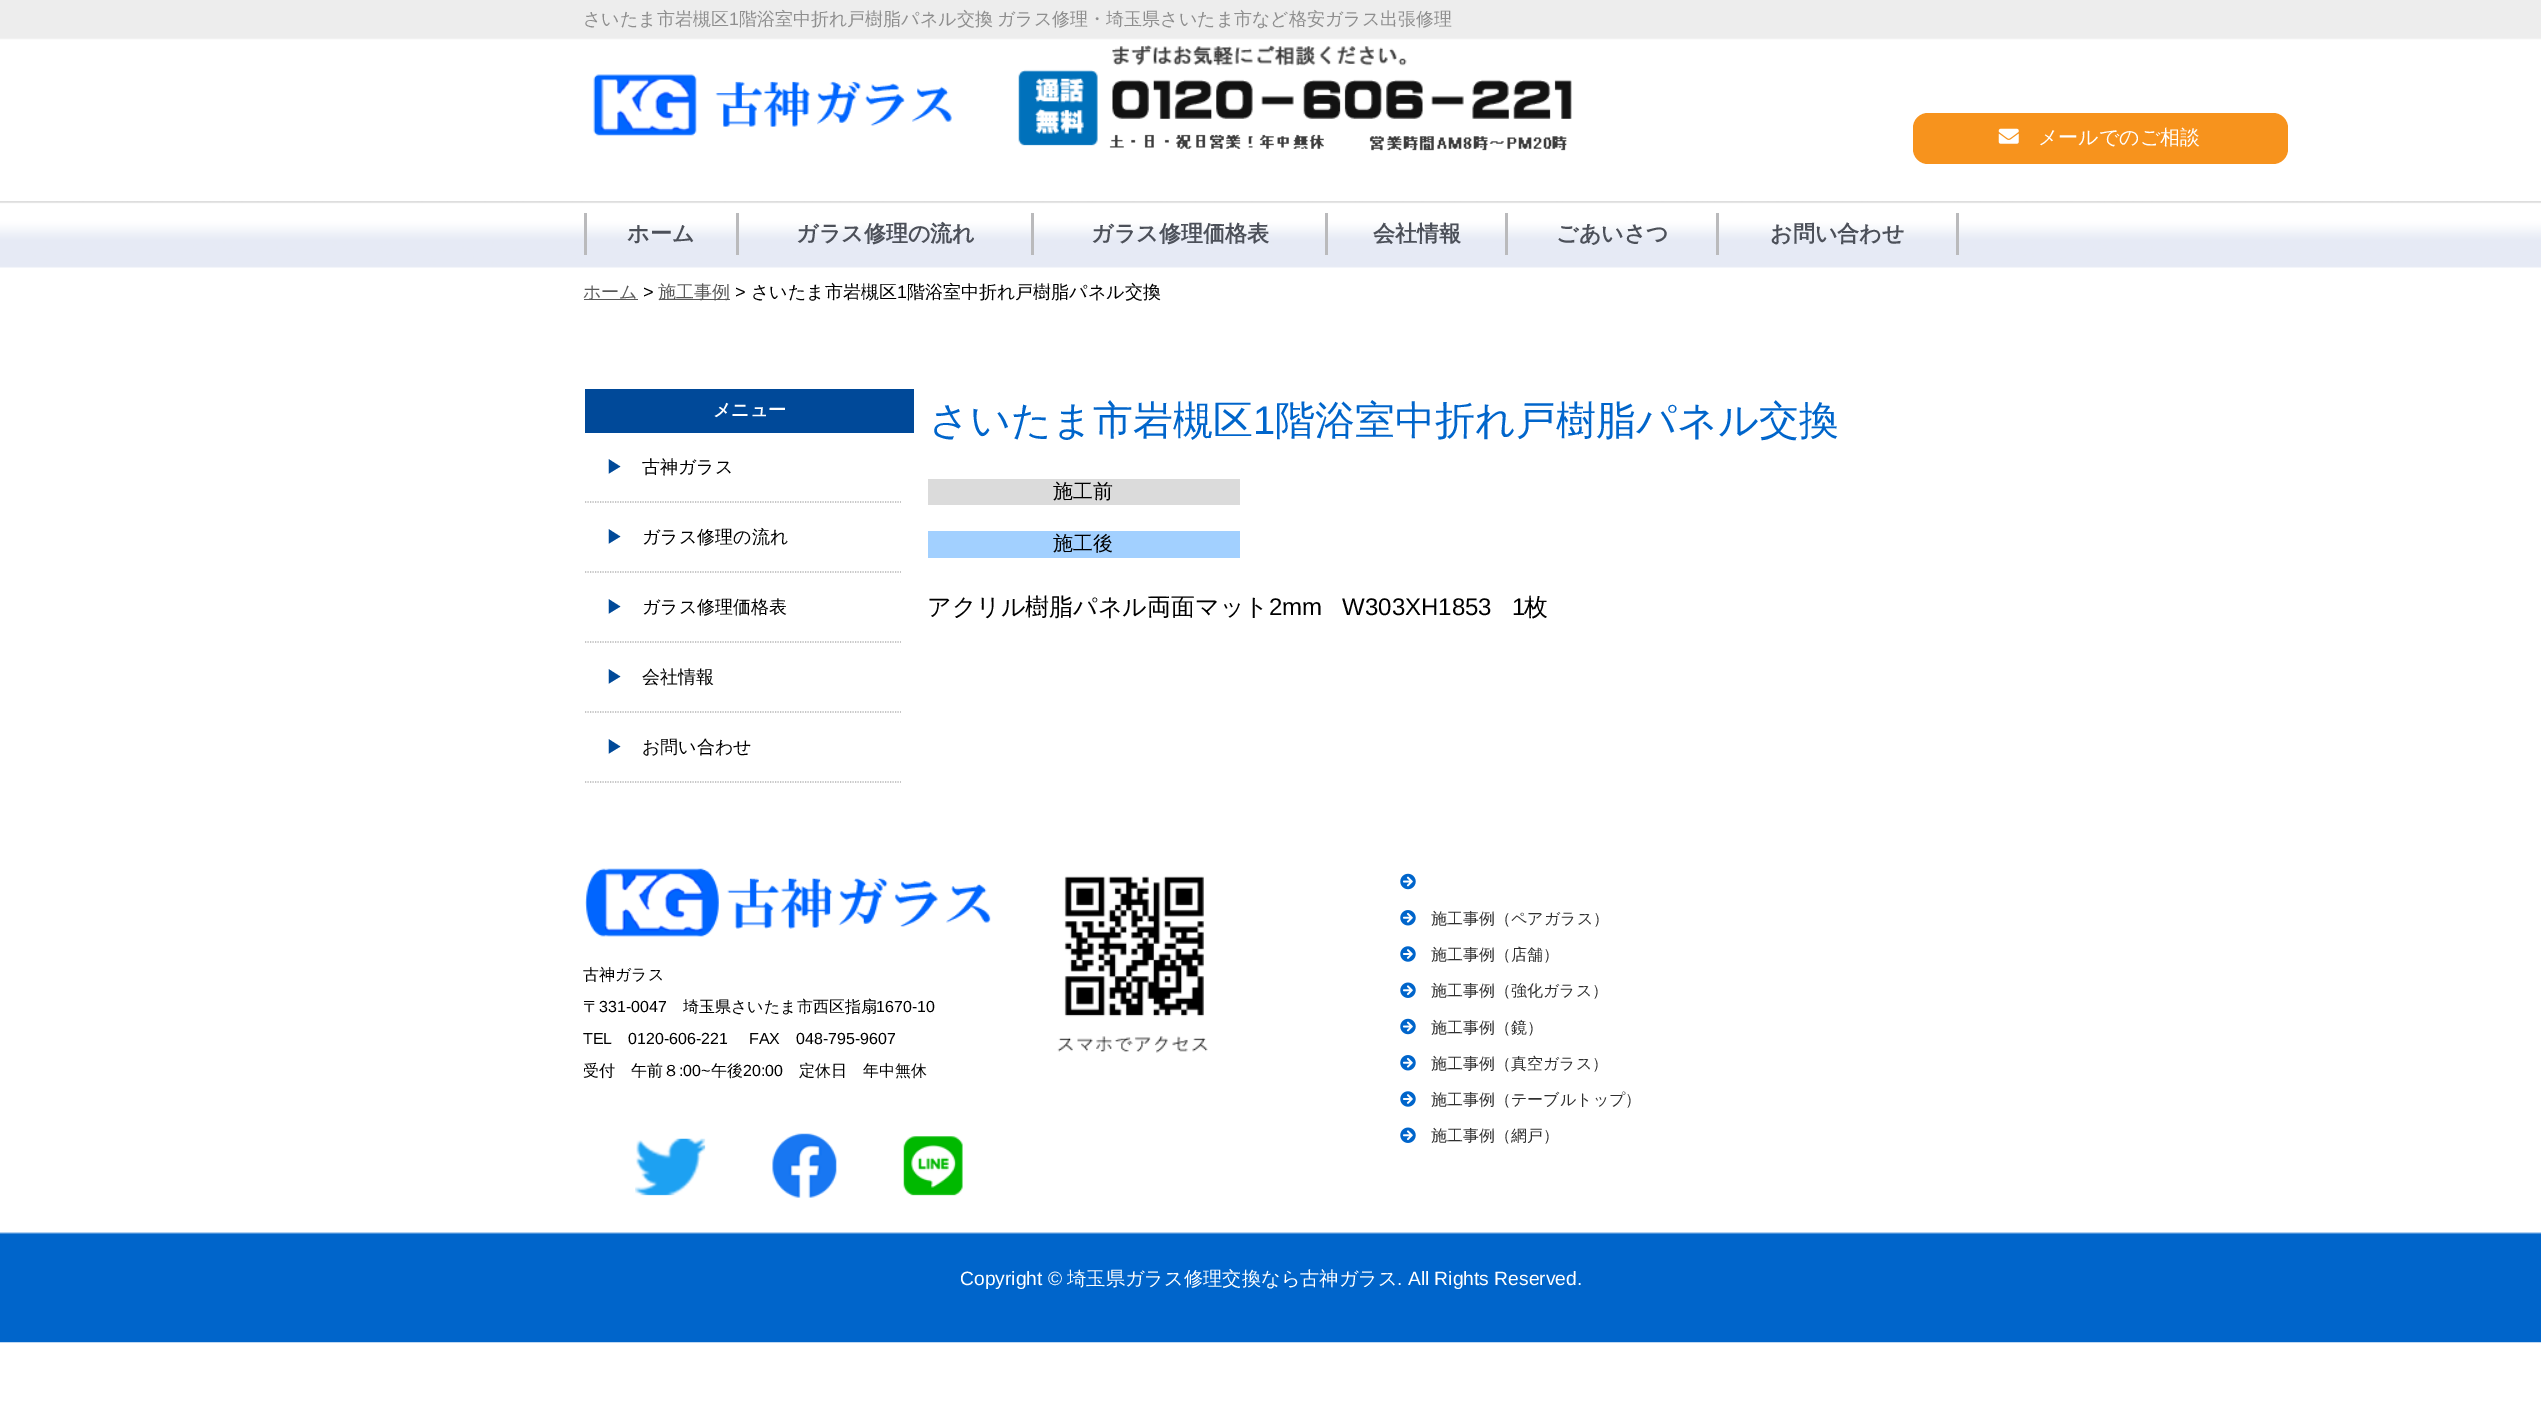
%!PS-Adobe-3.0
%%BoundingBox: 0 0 2541 1415
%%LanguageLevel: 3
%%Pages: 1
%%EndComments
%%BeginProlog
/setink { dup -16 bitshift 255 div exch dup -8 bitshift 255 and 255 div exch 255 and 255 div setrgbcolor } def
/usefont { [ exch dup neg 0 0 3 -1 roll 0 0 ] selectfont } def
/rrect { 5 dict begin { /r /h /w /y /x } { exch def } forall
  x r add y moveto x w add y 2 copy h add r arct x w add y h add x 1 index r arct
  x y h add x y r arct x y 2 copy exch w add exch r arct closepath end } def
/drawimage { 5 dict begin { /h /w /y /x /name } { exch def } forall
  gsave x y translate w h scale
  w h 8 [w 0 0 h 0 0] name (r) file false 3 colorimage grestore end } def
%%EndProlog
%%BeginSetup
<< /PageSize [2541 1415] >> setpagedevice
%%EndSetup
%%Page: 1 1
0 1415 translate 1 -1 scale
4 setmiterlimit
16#FFFFFF setink
0 0 2541 1415 rectfill
(img1.raw) 0 0 2541 268 drawimage
/WenQuanYiZenHei-Medium 18 usefont
16#8E8E8E setink
583 25 moveto (さいたま市岩槻区) show
/LiberationSans-Regular 18 usefont
729 25 moveto (1) show
/WenQuanYiZenHei-Medium 18 usefont
739 25 moveto (階浴室中折れ戸樹脂パネル交換) show
997 25 moveto (ガラス修理・埼玉県さいたま市など格安ガラス出張修理) show
(img2.raw) 593 74 359 62 drawimage
(img3.raw) 1018 45 554 106 drawimage
16#F7931D setink
1913 113 375 51 15 rrect fill
(img4.raw) 1998 128 21 16 drawimage
/WenQuanYiZenHei-Medium 20 usefont
16#FFFFFF setink
2038 144 moveto (メールでのご相談) show
16#BABABC setink
584 213 3 42 rectfill
/WenQuanYiZenHei-Bold 22 usefont
16#4C5059 setink
627 241 moveto (ホーム) show
16#BABABC setink
736 213 3 42 rectfill
16#4C5059 setink
796 241 moveto (ガラス修理の流れ) show
16#BABABC setink
1031 213 3 42 rectfill
16#4C5059 setink
1091 241 moveto (ガラス修理価格表) show
16#BABABC setink
1325 213 3 42 rectfill
16#4C5059 setink
1373 241 moveto (会社情報) show
16#BABABC setink
1505 213 3 42 rectfill
16#4C5059 setink
1556 241 moveto (ごあいさつ) show
16#BABABC setink
1956 213 3 42 rectfill
1716 213 3 42 rectfill
16#4C5059 setink
1770 241 moveto (お問い合わせ) show
16#595959 setink
584 299 54 1 rectfill
/WenQuanYiZenHei-Medium 18 usefont
583 298 moveto (ホーム) show
/LiberationSans-Regular 18 usefont
16#000000 setink
643 298 moveto (>) show
16#595959 setink
659 299 71 1 rectfill
/WenQuanYiZenHei-Medium 18 usefont
658 298 moveto (施工事例) show
/LiberationSans-Regular 18 usefont
16#000000 setink
735 298 moveto (>) show
/WenQuanYiZenHei-Medium 18 usefont
751 298 moveto (さいたま市岩槻区) show
/LiberationSans-Regular 18 usefont
897 298 moveto (1) show
/WenQuanYiZenHei-Medium 18 usefont
907 298 moveto (階浴室中折れ戸樹脂パネル交換) show
16#004999 setink
585 389 329 44 rectfill
/WenQuanYiZenHei-Bold 18 usefont
16#FFFFFF setink
713 416 moveto (メニュー) show
16#B3B3B3 setink
1.2 setlinewidth
[1.25 1.25] 0 setdash
585 502 moveto 901 502 lineto stroke
/WenQuanYiZenHei-Medium 18 usefont
16#004999 setink
606 473 moveto (▶) show
16#000000 setink
642 473 moveto (古神ガラス) show
16#B3B3B3 setink
585 572 moveto 901 572 lineto stroke
16#004999 setink
606 543 moveto (▶) show
16#000000 setink
642 543 moveto (ガラス修理の流れ) show
16#B3B3B3 setink
585 642 moveto 901 642 lineto stroke
16#004999 setink
606 613 moveto (▶) show
16#000000 setink
642 613 moveto (ガラス修理価格表) show
16#B3B3B3 setink
585 712 moveto 901 712 lineto stroke
16#004999 setink
606 683 moveto (▶) show
16#000000 setink
642 683 moveto (会社情報) show
16#B3B3B3 setink
585 782 moveto 901 782 lineto stroke
16#004999 setink
606 753 moveto (▶) show
16#000000 setink
642 753 moveto (お問い合わせ) show
/WenQuanYiZenHei-Medium 40 usefont
16#0065CB setink
929 434 moveto (さいたま市岩槻区) show
/LiberationSans-Regular 40 usefont
1253 434 moveto (1) show
/WenQuanYiZenHei-Medium 40 usefont
1275 434 moveto (階浴室中折れ戸樹脂パネル交換) show
16#DBDBDB setink
928 479 312 26 rectfill
/WenQuanYiZenHei-Medium 20 usefont
16#000000 setink
1053 498 moveto (施工前) show
16#A2D0FF setink
928 531 312 27 rectfill
16#000000 setink
1053 550 moveto (施工後) show
/WenQuanYiZenHei-Medium 24 usefont
927 615 moveto (アクリル樹脂パネル両面マット) show
/LiberationSans-Regular 24 usefont
1269 615 moveto (2mm   W303XH1853   1) show
/WenQuanYiZenHei-Medium 24 usefont
1524 615 moveto (枚) show
(img5.raw) 0 1232 2541 111 drawimage
(img6.raw) 585 868 406 69 drawimage
/WenQuanYiZenHei-Medium 16 usefont
583 980 moveto (古神ガラス) show
583 1012 moveto (〒) show
/LiberationSans-Regular 16 usefont
599 1012 moveto (331-0047) show
/WenQuanYiZenHei-Medium 16 usefont
683 1012 moveto (埼玉県さいたま市西区指扇) show
/LiberationSans-Regular 16 usefont
[
    [(1670-10) 876 1012]
    [(TEL) 583 1044]
    [(0120-606-221) 628 1044]
    [(FAX) 749 1044]
    [(048-795-9607) 796 1044]
] { aload pop moveto show } forall
/WenQuanYiZenHei-Medium 16 usefont
583 1076 moveto (受付　午前８) show
/LiberationSans-Regular 16 usefont
679 1076 moveto (:00~) show
/WenQuanYiZenHei-Medium 16 usefont
711 1076 moveto (午後) show
/LiberationSans-Regular 16 usefont
743 1076 moveto (20:00) show
/WenQuanYiZenHei-Medium 16 usefont
799 1076 moveto (定休日　年中無休) show
(img7.raw) 635 1138 71 58 drawimage
(img8.raw) 772 1133 65 65 drawimage
(img9.raw) 903 1136 60 60 drawimage
(img10.raw) 1057 876 151 177 drawimage
(img11.raw) 1400 873 16 17 drawimage
(img12.raw) 1400 910 16 16 drawimage
16#2F2F2F setink
1431 924 moveto (施工事例（ペアガラス）) show
(img13.raw) 1400 946 16 16 drawimage
1431 960 moveto (施工事例（店舗）) show
(img14.raw) 1400 982 16 16 drawimage
1431 996 moveto (施工事例（強化ガラス）) show
(img11.raw) 1400 1018 16 17 drawimage
1431 1033 moveto (施工事例（鏡）) show
(img12.raw) 1400 1055 16 16 drawimage
1431 1069 moveto (施工事例（真空ガラス）) show
(img13.raw) 1400 1091 16 16 drawimage
1431 1105 moveto (施工事例（テーブルトップ）) show
(img14.raw) 1400 1127 16 16 drawimage
1431 1141 moveto (施工事例（網戸）) show
/LiberationSans-Regular 19.25 usefont
16#FFFFFF setink
960 1285 moveto (Copyright ©) show
/WenQuanYiZenHei-Medium 19.25 usefont
1067 1285 moveto (埼玉県ガラス修理交換なら古神ガラス) show
/LiberationSans-Regular 19.25 usefont
1397 1285 moveto (. All Rights Reserved.) show
showpage
%%EOF
